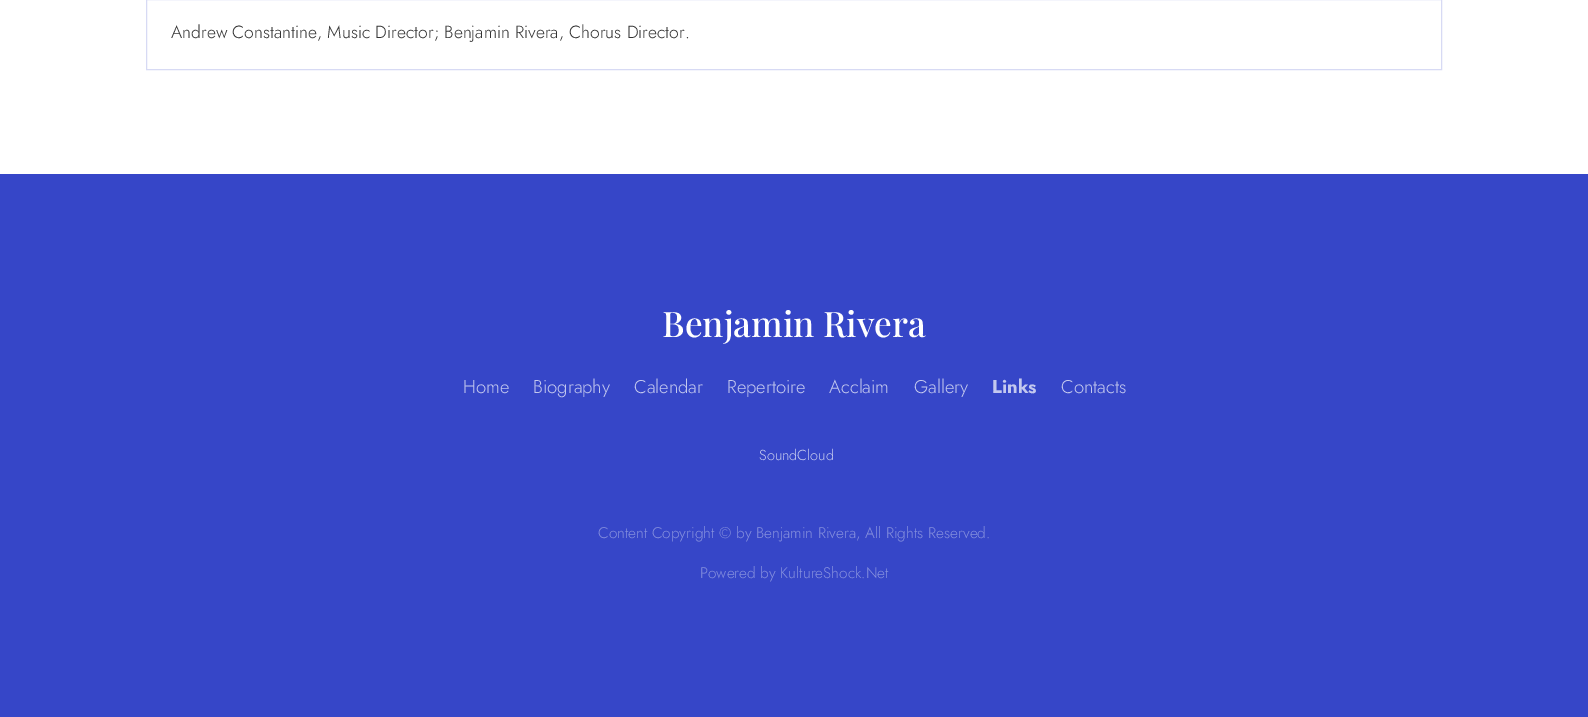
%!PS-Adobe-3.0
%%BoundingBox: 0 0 1588 717
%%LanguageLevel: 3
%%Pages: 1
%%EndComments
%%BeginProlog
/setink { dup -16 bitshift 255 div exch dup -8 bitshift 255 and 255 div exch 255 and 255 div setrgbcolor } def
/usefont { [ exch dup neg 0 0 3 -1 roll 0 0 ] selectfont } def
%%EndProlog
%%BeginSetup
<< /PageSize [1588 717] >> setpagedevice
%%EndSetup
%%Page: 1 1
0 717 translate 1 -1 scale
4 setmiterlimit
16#FFFFFF setink
0 0 1588 717 rectfill
16#D7DAF4 setink
146.5 -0.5 1295 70 rectstroke
/Jost-Light 17.6 usefont
16#333333 setink
171 38 moveto (Andrew Constantine, Music Director; Benjamin Rivera, Chorus Director.) show
16#3646C8 setink
0 174 1588 543 rectfill
/PlayfairDisplay-Medium 35.25 usefont
16#FFFFFF setink
662 337 moveto (Benjamin Rivera) show
/Jost-Light 18.5 usefont
16#C3C8EF setink
[
    [(Home) 463 393]
    [(Biography) 533 393]
    [(Calendar) 634 393]
    [(Repertoire) 727 393]
    [(Acclaim) 829 393]
    [(Gallery) 914 393]
] { aload pop moveto show } forall
/Jost-Bold 18.5 usefont
992 393 moveto (Links) show
/Jost-Light 18.5 usefont
1061 393 moveto (Contacts) show
/Jost-Light 14.5 usefont
759 460 moveto (SoundCloud) show
/Jost-Light 15.4 usefont
16#8690DE setink
598 538 moveto (Content Copyright © by Benjamin Rivera, All Rights Reserved.) show
700 578 moveto (Powered by KultureShock.Net) show
showpage
%%EOF
